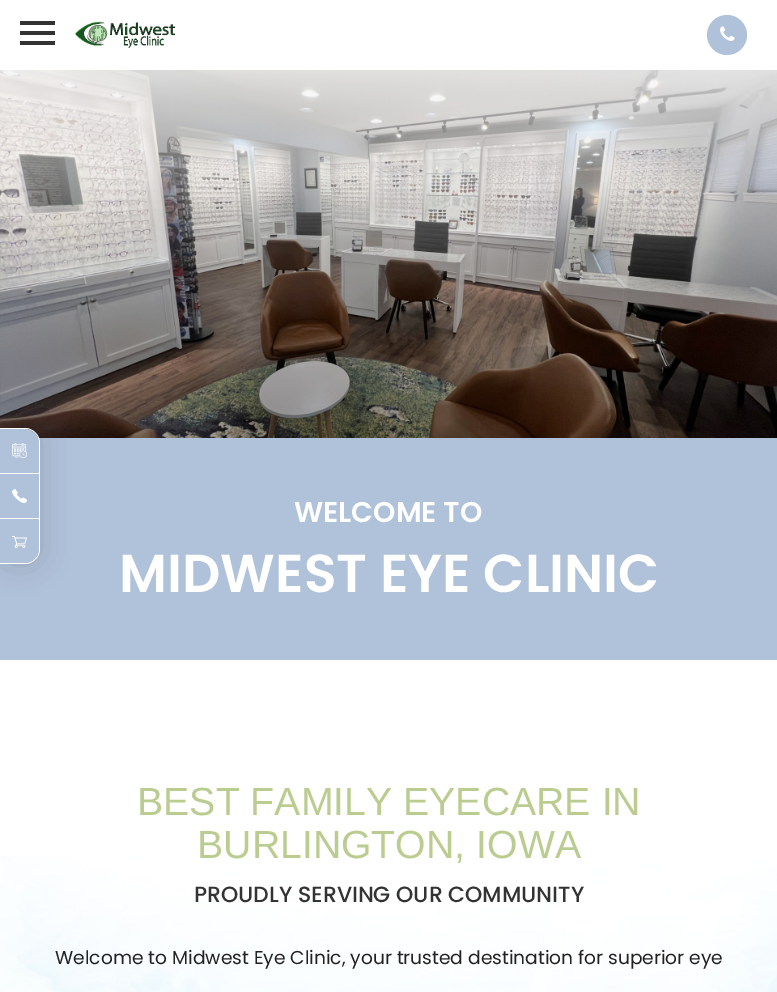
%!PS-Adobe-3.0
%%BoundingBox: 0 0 777 992
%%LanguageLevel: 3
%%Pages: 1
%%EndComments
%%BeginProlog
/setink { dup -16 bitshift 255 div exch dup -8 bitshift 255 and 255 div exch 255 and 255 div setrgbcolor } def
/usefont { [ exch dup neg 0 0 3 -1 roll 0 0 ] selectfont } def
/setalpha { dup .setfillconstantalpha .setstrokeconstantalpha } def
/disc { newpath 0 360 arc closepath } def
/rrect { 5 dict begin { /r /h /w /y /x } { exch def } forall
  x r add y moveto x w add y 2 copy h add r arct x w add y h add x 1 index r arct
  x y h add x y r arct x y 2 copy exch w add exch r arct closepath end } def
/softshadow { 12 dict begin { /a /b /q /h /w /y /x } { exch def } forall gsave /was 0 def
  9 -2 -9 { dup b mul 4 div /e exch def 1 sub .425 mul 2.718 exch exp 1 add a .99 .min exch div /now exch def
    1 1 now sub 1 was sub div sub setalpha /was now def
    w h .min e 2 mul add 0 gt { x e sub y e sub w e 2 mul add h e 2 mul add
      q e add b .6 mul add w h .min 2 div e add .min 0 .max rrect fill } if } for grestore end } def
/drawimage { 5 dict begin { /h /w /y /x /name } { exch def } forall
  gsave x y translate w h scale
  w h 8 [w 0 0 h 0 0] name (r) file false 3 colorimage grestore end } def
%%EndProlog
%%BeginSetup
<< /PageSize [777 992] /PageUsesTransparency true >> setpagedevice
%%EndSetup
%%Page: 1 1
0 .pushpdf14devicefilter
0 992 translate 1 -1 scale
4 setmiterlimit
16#FFFFFF setink
0 0 777 992 rectfill
(img6.raw) 0 70 777 368 drawimage
16#B0C1DA setink
0 438 777 222 rectfill
gsave
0 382 moveto 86 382 lineto 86 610 lineto 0 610 lineto closepath 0 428 moveto 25 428 lineto 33.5 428 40 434.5 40 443 curveto 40 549 lineto 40 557.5 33.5 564 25 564 curveto 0 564 lineto closepath eoclip newpath
16#000000 setink
0 428 40 136 15 15 0.15 softshadow
grestore
16#FFFFFF setink
0 428 moveto 25 428 lineto 33 428 40 435 40 443 curveto 40 549 lineto 40 557 33 564 25 564 curveto 0 564 lineto closepath 0 429 moveto 25 429 lineto 33 429 39 435 39 443 curveto 39 549 lineto 39 557 33 563 25 563 curveto 0 563 lineto closepath eofill
16#B0C1DA setink
0 429 moveto 25 429 lineto 32.5 429 39 435.5 39 443 curveto 39 474 lineto 0 474 lineto closepath fill
16#FFFFFF setink
0 473 39 1 rectfill
(img1.raw) 12 443 15 15 drawimage
0 518 39 1 rectfill
(img2.raw) 12 489 15 14 drawimage
16#B0C1DA setink
0 519 moveto 39 519 lineto 39 549 lineto 39 556.5 32.5 563 25 563 curveto 0 563 lineto closepath fill
(img3.raw) 12 536 15 12 drawimage
[
    [20 41 35 4 16#333333]
    [20 21 35 4 16#333333]
    [20 31 35 4 16#333333]
] { aload pop setink rectfill } forall
(img4.raw) 75 21 100 28 drawimage
16#B0C1DA setink
727 35 20 disc fill
(img5.raw) 720 26 15 15 drawimage
/Poppins-SemiBold 28.5 usefont
16#FFFFFF setink
294 522 moveto (WELCOME TO) show
/Poppins-SemiBold 53.5 usefont
119 592 moveto (MIDWEST EYE CLINIC) show
/LiberationSans-Regular 39.25 usefont
16#BBCC91 setink
137 815 moveto (BEST FAMILY EYECARE IN) show
(img7.raw) 0 856 777 136 drawimage
197 858 moveto (BURLINGTON, IOWA) show
/Poppins-Medium 22 usefont
16#333333 setink
194 902 moveto (PROUDLY SERVING OUR COMMUNITY) show
/Poppins-Regular 18.65 usefont
16#222222 setink
55 964 moveto (Welcome to Midwest Eye Clinic, your trusted destination for superior eye) show
.poppdf14devicefilter showpage
%%EOF
